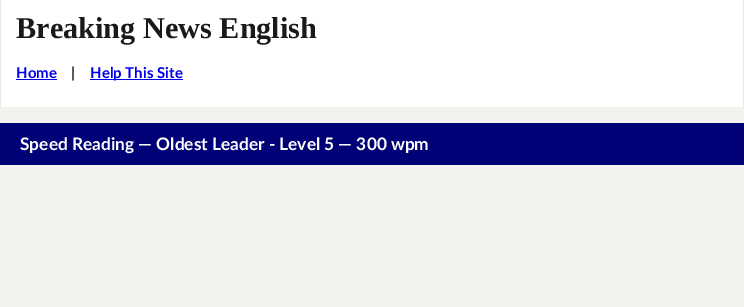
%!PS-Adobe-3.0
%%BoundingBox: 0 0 744 307
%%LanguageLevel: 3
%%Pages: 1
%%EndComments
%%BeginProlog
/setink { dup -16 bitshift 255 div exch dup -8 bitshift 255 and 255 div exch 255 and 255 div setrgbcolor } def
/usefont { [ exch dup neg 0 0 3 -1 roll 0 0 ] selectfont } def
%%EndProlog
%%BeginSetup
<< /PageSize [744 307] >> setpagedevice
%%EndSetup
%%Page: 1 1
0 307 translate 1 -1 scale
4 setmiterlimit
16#F2F2EF setink
0 0 744 307 rectfill
[
    [1 0 742 107 16#FFFFFF]
    [743 0 1 107 16#E6E6E6]
    [0 0 1 107 16#E6E6E6]
] { aload pop setink rectfill } forall
/LiberationSerif-Bold 30.25 usefont
16#1A1A1A setink
16 38 moveto (Breaking News English) show
/Lato-Bold 15 usefont
16#0000EE setink
16 78 moveto (Home) show
16 79 41 1 rectfill
16#222222 setink
71 78 moveto (|) show
16#0000EE setink
90 79 93 1 rectfill
90 78 moveto (Help This Site) show
[
    [1 123 742 42 16#000077]
    [743 123 1 42 16#00006B]
    [0 123 1 42 16#00006B]
] { aload pop setink rectfill } forall
/Lato-Bold 17.3 usefont
16#FFFFFF setink
20 150 moveto (Speed Reading — Oldest Leader - Level 5 — 300 wpm) show
showpage
%%EOF
